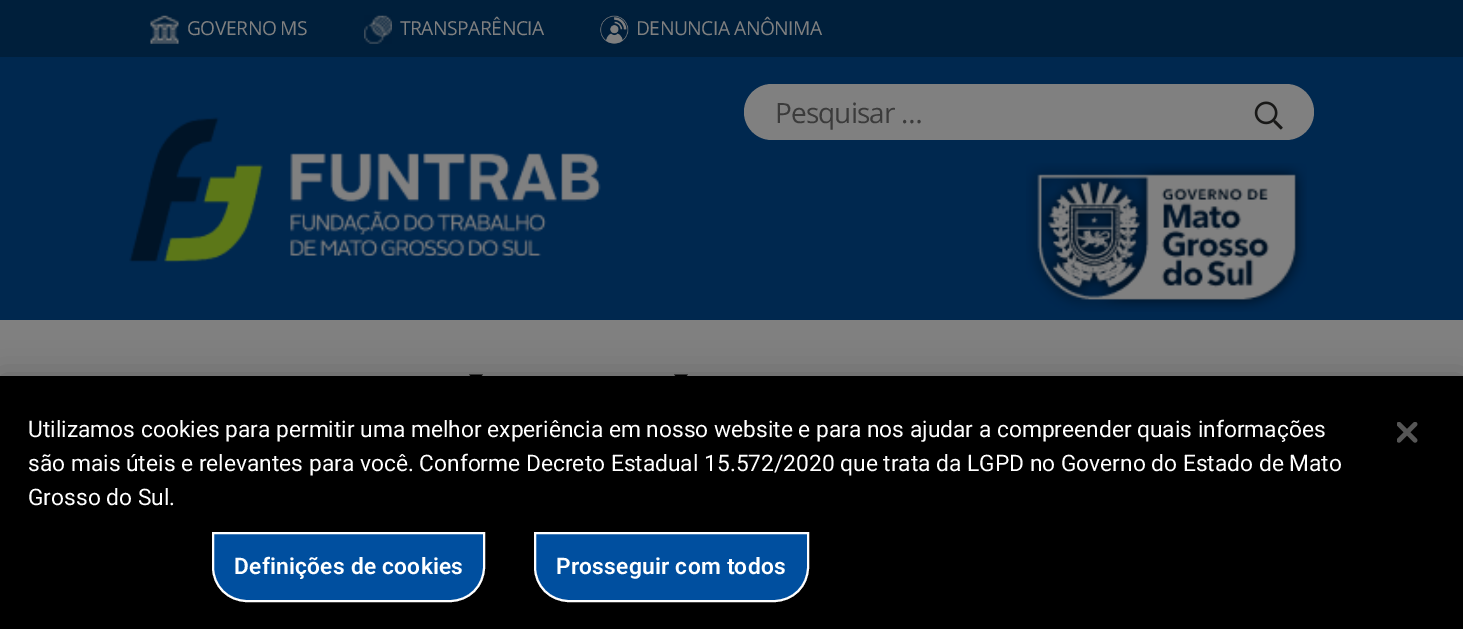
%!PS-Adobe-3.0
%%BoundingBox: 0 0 1463 629
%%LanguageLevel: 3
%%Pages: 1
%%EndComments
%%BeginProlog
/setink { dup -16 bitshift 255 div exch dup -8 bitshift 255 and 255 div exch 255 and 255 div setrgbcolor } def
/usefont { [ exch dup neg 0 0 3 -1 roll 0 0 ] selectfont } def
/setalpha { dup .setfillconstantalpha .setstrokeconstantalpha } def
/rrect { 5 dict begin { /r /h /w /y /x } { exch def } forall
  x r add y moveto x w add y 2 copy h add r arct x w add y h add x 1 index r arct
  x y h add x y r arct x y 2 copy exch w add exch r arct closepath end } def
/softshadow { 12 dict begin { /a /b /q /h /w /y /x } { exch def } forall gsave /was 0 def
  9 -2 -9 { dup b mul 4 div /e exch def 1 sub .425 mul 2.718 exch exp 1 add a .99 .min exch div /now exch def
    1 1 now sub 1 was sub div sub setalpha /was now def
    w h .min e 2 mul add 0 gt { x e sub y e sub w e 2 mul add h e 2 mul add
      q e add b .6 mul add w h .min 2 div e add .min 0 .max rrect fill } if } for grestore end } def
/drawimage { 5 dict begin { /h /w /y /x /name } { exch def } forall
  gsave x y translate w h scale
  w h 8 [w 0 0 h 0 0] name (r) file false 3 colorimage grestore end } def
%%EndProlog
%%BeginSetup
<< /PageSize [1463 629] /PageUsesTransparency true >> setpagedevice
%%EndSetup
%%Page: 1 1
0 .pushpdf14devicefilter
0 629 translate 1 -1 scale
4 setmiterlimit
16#001F3B setink
0 0 1463 629 rectfill
(img1.raw) 150 15 29 29 drawimage
/OpenSans-Regular 19.25 usefont
16#808080 setink
187 35 moveto -0.5 0 (GOVERNO MS) ashow
(img2.raw) 364 15 28 29 drawimage
400 35 moveto -0.5 0 (TRANSPARÊNCIA) ashow
(img3.raw) 600 15 29 29 drawimage
636 35 moveto -0.5 0 (DENUNCIA ANÔNIMA) ashow
16#00284F setink
0 57 1463 263 rectfill
(img4.raw) 129 117 472 146 drawimage
16#808080 setink
744 84 570 56 28 rrect fill
/OpenSans-Regular 28 usefont
16#3B3B3B setink
775 123 moveto -0.9 0 (Pesquisar …) ashow
(img5.raw) 1254 101 29 29 drawimage
(img6.raw) 1026 163 281 149 drawimage
16#808080 setink
0 320 1463 56 rectfill
16#000000 setink
469 374.5 moveto 483 374.5 lineto 476 381.5 lineto closepath fill
674 374.5 moveto 688 374.5 lineto 681 381.5 lineto closepath fill
0 376 1463 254 0 16 0.2 softshadow
0 376 1463 253 rectfill
/Roboto-Regular 22.75 usefont
16#FFFFFF setink
[
    [(Utilizamos cookies para permitir uma melhor experiência em nosso website e para nos ajudar a compreender quais informações) 28 437]
    [(são mais úteis e relevantes para você. Conforme Decreto Estadual 15.572/2020 que trata da LGPD no Governo do Estado de Mato) 28 471]
    [(Grosso do Sul.) 28 505]
] { aload pop moveto show } forall
16#004F9F setink
213 533 moveto 484 533 lineto 484 567 lineto 484 586 469 601 450 601 curveto 247 601 lineto 228 601 213 586 213 567 curveto closepath gsave fill grestore
16#FFFFFF setink
2 setlinewidth
stroke
/Roboto-SemiBold 22.75 usefont
234 574 moveto 0.25 0 (Definições de cookies) ashow
16#004F9F setink
535 533 moveto 808 533 lineto 808 567 lineto 808 586 793 601 774 601 curveto 569 601 lineto 550 601 535 586 535 567 curveto closepath gsave fill grestore
16#FFFFFF setink
stroke
556 574 moveto 0.25 0 (Prosseguir com todos) ashow
(img7.raw) 1397 422 21 21 drawimage
.poppdf14devicefilter showpage
%%EOF
